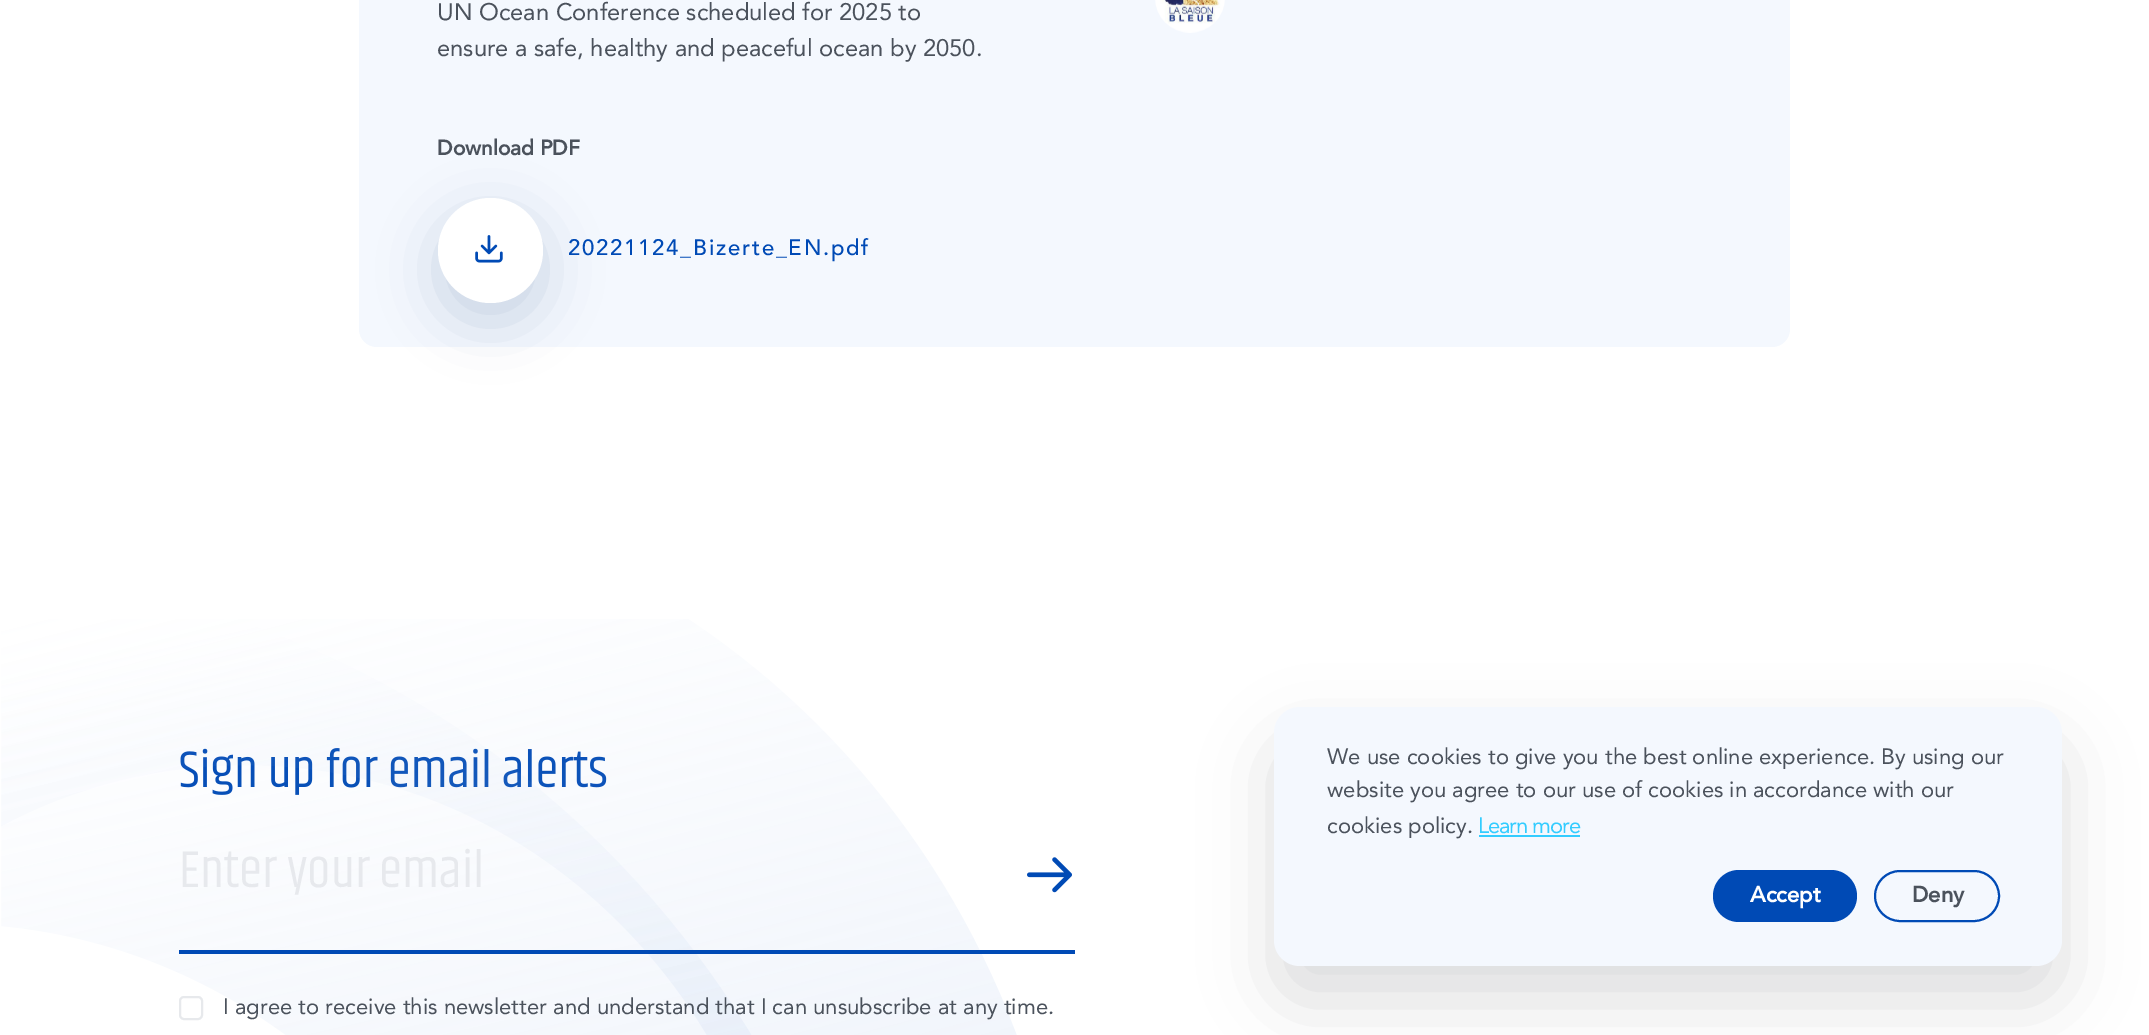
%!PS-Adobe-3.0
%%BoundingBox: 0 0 2149 1035
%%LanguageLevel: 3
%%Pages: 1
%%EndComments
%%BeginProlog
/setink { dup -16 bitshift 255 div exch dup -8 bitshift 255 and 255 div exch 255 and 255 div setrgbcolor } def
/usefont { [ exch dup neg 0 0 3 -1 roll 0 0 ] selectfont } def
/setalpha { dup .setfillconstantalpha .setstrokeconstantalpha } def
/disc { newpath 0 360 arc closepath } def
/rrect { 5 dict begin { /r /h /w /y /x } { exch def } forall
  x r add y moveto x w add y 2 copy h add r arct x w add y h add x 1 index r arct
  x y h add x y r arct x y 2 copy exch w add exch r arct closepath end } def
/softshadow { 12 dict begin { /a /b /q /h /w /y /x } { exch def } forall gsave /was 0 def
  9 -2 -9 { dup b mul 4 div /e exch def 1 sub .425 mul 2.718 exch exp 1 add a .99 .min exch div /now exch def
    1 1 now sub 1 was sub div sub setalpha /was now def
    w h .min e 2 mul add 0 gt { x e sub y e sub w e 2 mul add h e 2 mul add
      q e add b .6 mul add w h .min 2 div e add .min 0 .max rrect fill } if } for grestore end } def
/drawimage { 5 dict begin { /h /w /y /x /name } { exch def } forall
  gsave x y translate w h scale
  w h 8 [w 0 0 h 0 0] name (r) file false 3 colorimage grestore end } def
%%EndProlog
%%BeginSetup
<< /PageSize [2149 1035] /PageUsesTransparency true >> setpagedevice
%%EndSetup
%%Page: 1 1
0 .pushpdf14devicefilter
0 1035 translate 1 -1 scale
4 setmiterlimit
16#FFFFFF setink
0 0 2149 1035 rectfill
16#F4F8FE setink
359 -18 1431 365 18 rrect fill
/Avenir-Regular 23.8 usefont
16#4B525C setink
437 20 moveto (UN Ocean Conference scheduled for 2025 to) show
437 56 moveto (ensure a safe, healthy and peaceful ocean by 2050.) show
(img1.raw) 1155 0 70 33 drawimage
/Avenir-Bold 21 usefont
437 155 moveto (Download PDF) show
16#0B326A setink
438 217 105 105 52.5 28 0.18 softshadow
16#FFFFFF setink
490.5 250.5 52.5 disc fill
(img2.raw) 475 235 28 28 drawimage
/Avenir-Medium 22.1 usefont
16#004AB5 setink
568 255 moveto 1.75 0 (20221124_Bizerte_EN.pdf) ashow
/Khand-Regular 52.75 usefont
179 787 moveto (Sign up for email alerts) show
(img3.raw) 1 619 1016 416 drawimage
179 950 896 4 rectfill
16#E7E9ED setink
179 887 moveto (Enter your email) show
(img4.raw) 1027 857 45 36 drawimage
16#E7E9EC setink
2 setlinewidth
180 997 22 22 4 rrect stroke
/Avenir-Regular 22.1 usefont
16#4B525C setink
223 1014 moveto (I agree to receive this newsletter and understand that I can unsubscribe at any time.) show
1274 742 788 259 26 35 0.2 softshadow
16#F4F8FE setink
1274 707 788 259 26 rrect fill
16#4B525C setink
[
    [(We use cookies to give you the best online experience. By using our) 1327 764]
    [(website you agree to our use of cookies in accordance with our) 1327 797]
    [(cookies policy.) 1327 833]
] { aload pop moveto show } forall
16#33CCFF setink
1478 833 moveto -1.1 0 (Learn more) ashow
1479 835 101 2 rectfill
16#004AB5 setink
1713 870 144 52 26 rrect fill
/Avenir-Bold 22.1 usefont
16#FFFFFF setink
1750 902 moveto (Accept) show
16#004AB5 setink
1875 871 124 50 25 rrect stroke
16#4B525C setink
1912 902 moveto (Deny) show
.poppdf14devicefilter showpage
%%EOF
